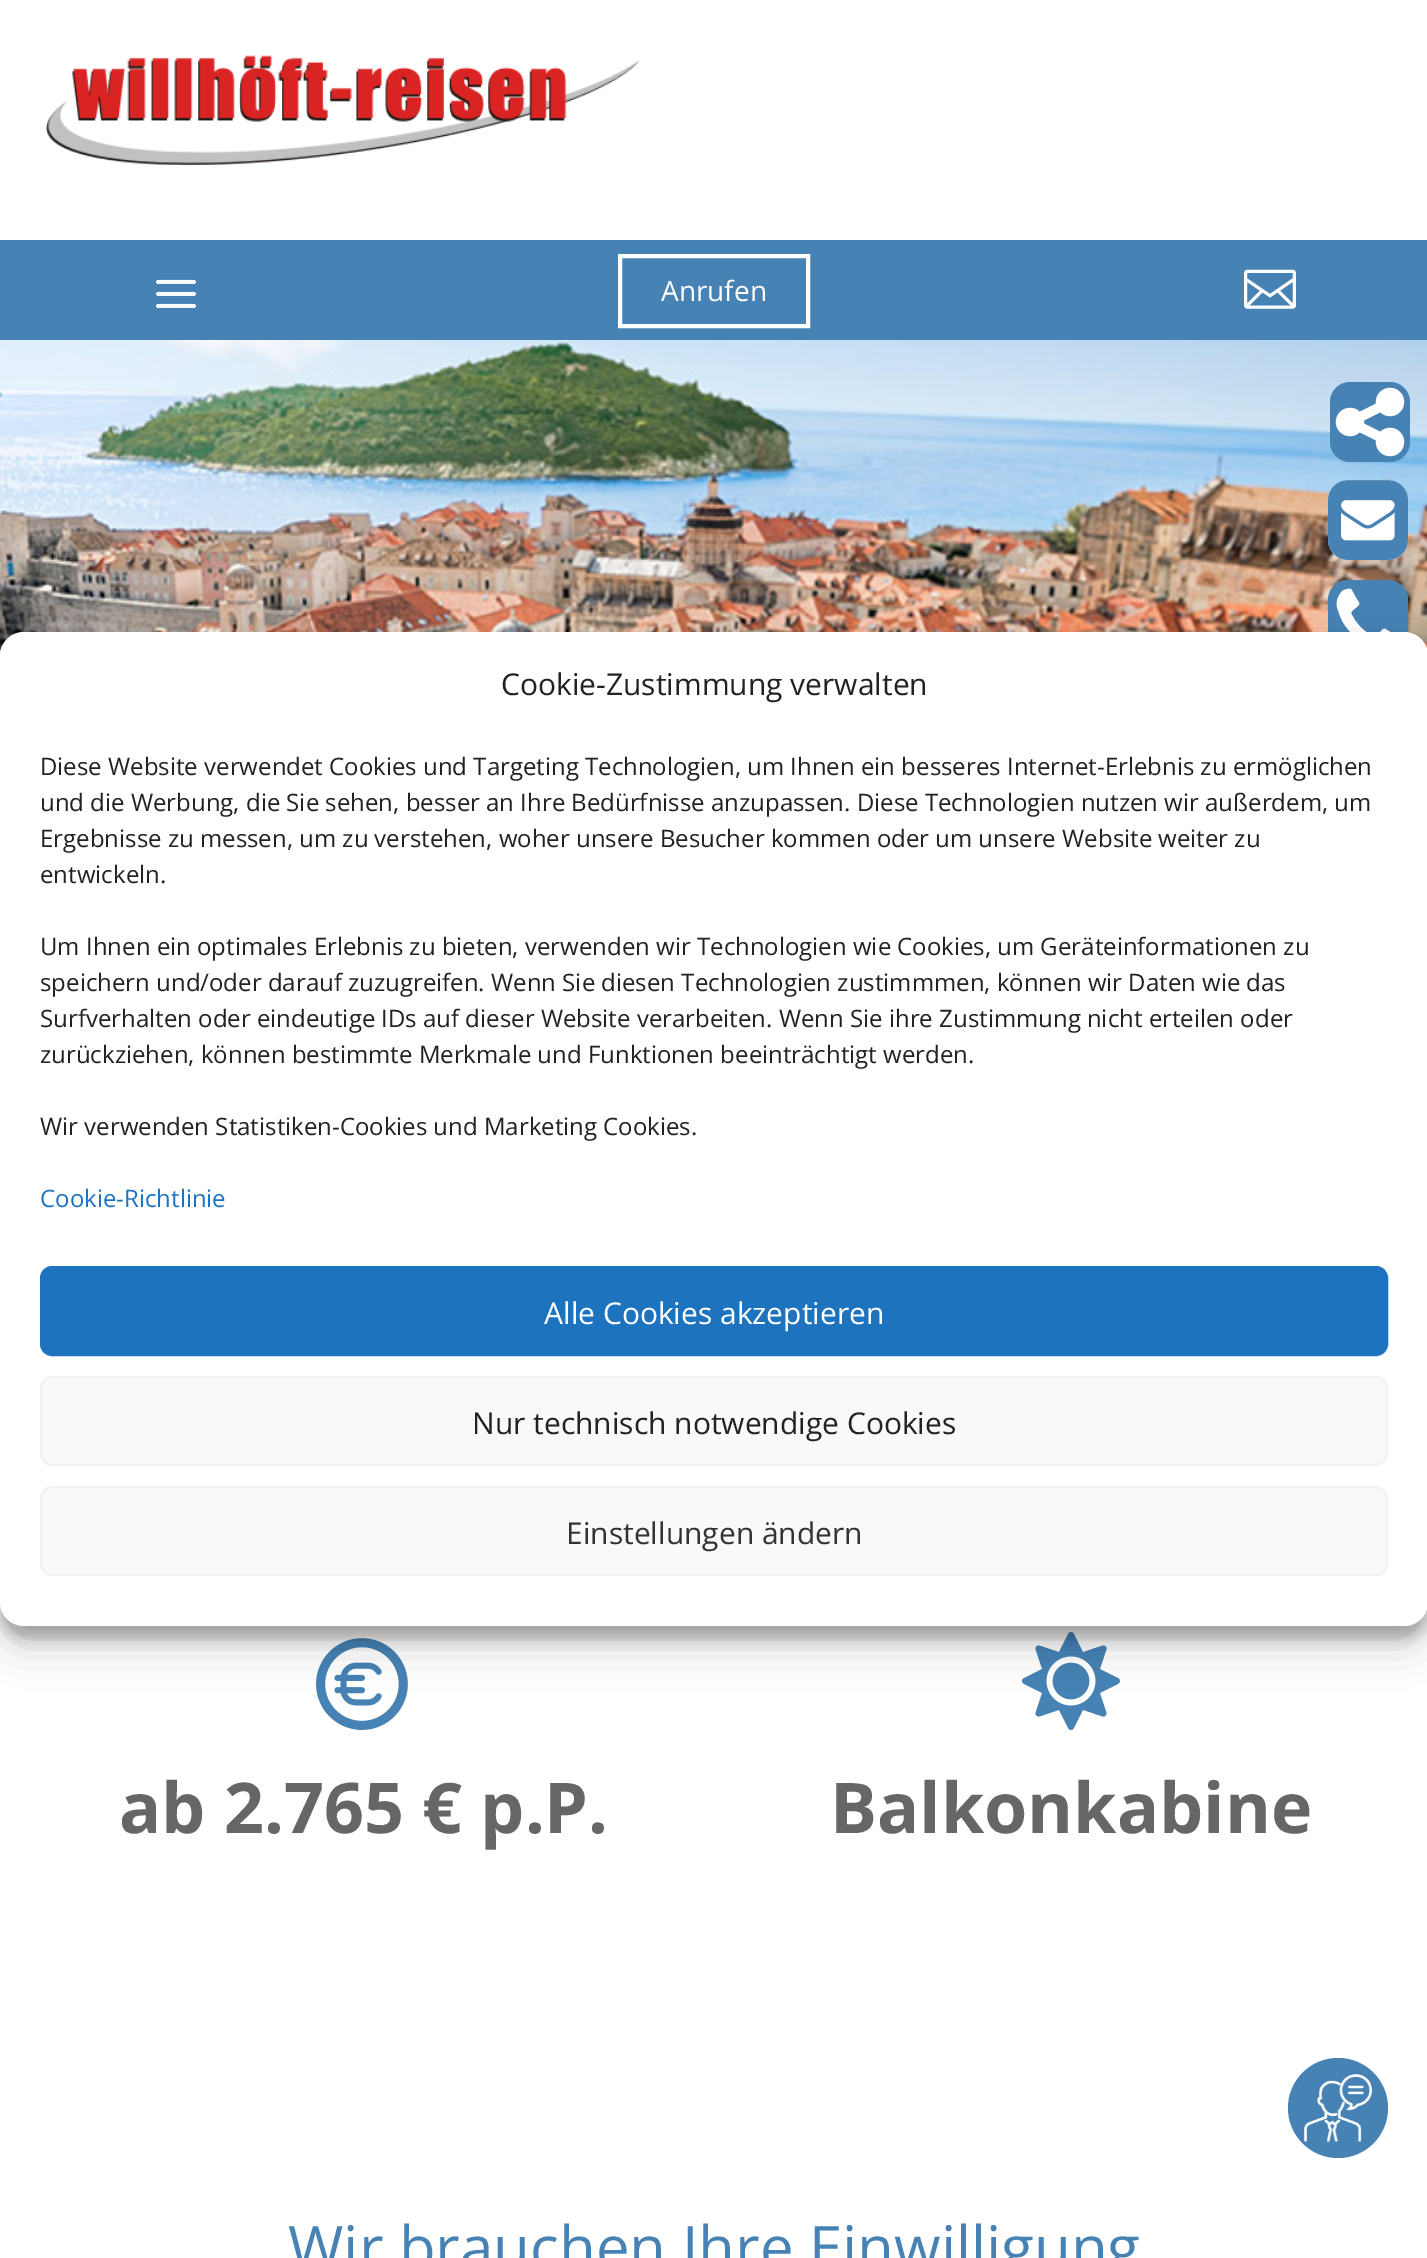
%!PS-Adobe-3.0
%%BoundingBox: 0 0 1427 2258
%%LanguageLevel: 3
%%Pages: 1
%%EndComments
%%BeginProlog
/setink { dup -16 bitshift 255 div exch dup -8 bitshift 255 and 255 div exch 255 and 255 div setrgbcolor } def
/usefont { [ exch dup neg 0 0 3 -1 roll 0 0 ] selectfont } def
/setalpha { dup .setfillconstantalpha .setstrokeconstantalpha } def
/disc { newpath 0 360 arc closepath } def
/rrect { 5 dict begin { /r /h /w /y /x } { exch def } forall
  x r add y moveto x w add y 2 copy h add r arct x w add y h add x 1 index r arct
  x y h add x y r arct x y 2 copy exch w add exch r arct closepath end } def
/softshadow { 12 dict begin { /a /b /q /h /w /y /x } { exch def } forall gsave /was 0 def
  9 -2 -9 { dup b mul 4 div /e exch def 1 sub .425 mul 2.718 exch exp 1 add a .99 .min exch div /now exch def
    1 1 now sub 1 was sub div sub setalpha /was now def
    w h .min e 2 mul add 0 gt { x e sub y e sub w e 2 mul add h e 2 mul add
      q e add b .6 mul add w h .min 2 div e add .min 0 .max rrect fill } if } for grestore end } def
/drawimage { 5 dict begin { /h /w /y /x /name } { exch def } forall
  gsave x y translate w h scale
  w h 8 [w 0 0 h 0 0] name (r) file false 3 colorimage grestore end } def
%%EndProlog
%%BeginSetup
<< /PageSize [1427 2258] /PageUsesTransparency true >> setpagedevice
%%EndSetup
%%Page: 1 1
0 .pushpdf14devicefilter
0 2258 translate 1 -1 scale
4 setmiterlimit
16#FFFFFF setink
0 0 1427 2258 rectfill
(img1.raw) 45 55 595 111 drawimage
16#4682B4 setink
0 240 1427 100 rectfill
(img2.raw) 156 279 40 29 drawimage
16#FFFFFF setink
4 setlinewidth
620 256 188 70 rectstroke
/OpenSans-Regular 28 usefont
661 301 moveto (Anrufen) show
(img3.raw) 1244 269 52 40 drawimage
(img4.raw) 0 340 1427 316 drawimage
16#4682B4 setink
1330 382 80 80 20 rrect fill
(img5.raw) 1335 387 70 70 drawimage
16#FFFFFF setink
1328 480 80 80 20 rrect fill
(img6.raw) 1328 480 80 80 drawimage
16#4682B4 setink
1328 580 80 80 20 rrect fill
(img7.raw) 1336 588 55 44 drawimage
(img8.raw) 316 1638 92 92 drawimage
/OpenSans-Bold 70 usefont
16#666666 setink
119 1833 moveto (ab 2.765 € p.P.) show
(img9.raw) 1022 1632 98 98 drawimage
830 1833 moveto (Balkonkabine) show
/OpenSans-Regular 60 usefont
16#4682B4 setink
288 2269 moveto (Wir brauchen Ihre Einwilligung) show
1338 2108 50 disc fill
(img10.raw) 1304 2074 68 68 drawimage
16#000000 setink
0 644 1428 994 24 6 0.23 softshadow
0 652 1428 994 24 20 0.19 softshadow
16#FFFFFF setink
0 632 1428 994 24 rrect fill
/OpenSans-Regular 30 usefont
16#222222 setink
501 695 moveto (Cookie-Zustimmung verwalten) show
/OpenSans-Regular 24 usefont
[
    [(Diese Website verwendet Cookies und Targeting Technologien, um Ihnen ein besseres Internet-Erlebnis zu ermöglichen) 40 775]
    [(und die Werbung, die Sie sehen, besser an Ihre Bedürfnisse anzupassen. Diese Technologien nutzen wir außerdem, um) 40 811]
    [(Ergebnisse zu messen, um zu verstehen, woher unsere Besucher kommen oder um unsere Website weiter zu) 40 847]
    [(entwickeln.) 40 883]
    [(Um Ihnen ein optimales Erlebnis zu bieten, verwenden wir Technologien wie Cookies, um Geräteinformationen zu) 40 955]
    [(speichern und/oder darauf zuzugreifen. Wenn Sie diesen Technologien zustimmmen, können wir Daten wie das) 40 991]
    [(Surfverhalten oder eindeutige IDs auf dieser Website verarbeiten. Wenn Sie ihre Zustimmung nicht erteilen oder) 40 1027]
    [(zurückziehen, können bestimmte Merkmale und Funktionen beeinträchtigt werden.) 40 1063]
    [(Wir verwenden Statistiken-Cookies und Marketing Cookies.) 40 1135]
] { aload pop moveto show } forall
16#1E73BE setink
40 1207 moveto (Cookie-Richtlinie) show
41 1267 1346 88 11 rrect gsave fill grestore
2 setlinewidth
stroke
/OpenSans-Regular 30 usefont
16#FFFFFF setink
544 1324 moveto (Alle Cookies akzeptieren) show
16#F9F9F9 setink
41 1377 1346 88 11 rrect gsave fill grestore
16#F2F2F2 setink
stroke
16#222222 setink
472 1434 moveto (Nur technisch notwendige Cookies) show
16#F9F9F9 setink
41 1487 1346 88 11 rrect gsave fill grestore
16#F2F2F2 setink
stroke
16#333333 setink
566 1544 moveto (Einstellungen ändern) show
.poppdf14devicefilter showpage
%%EOF
